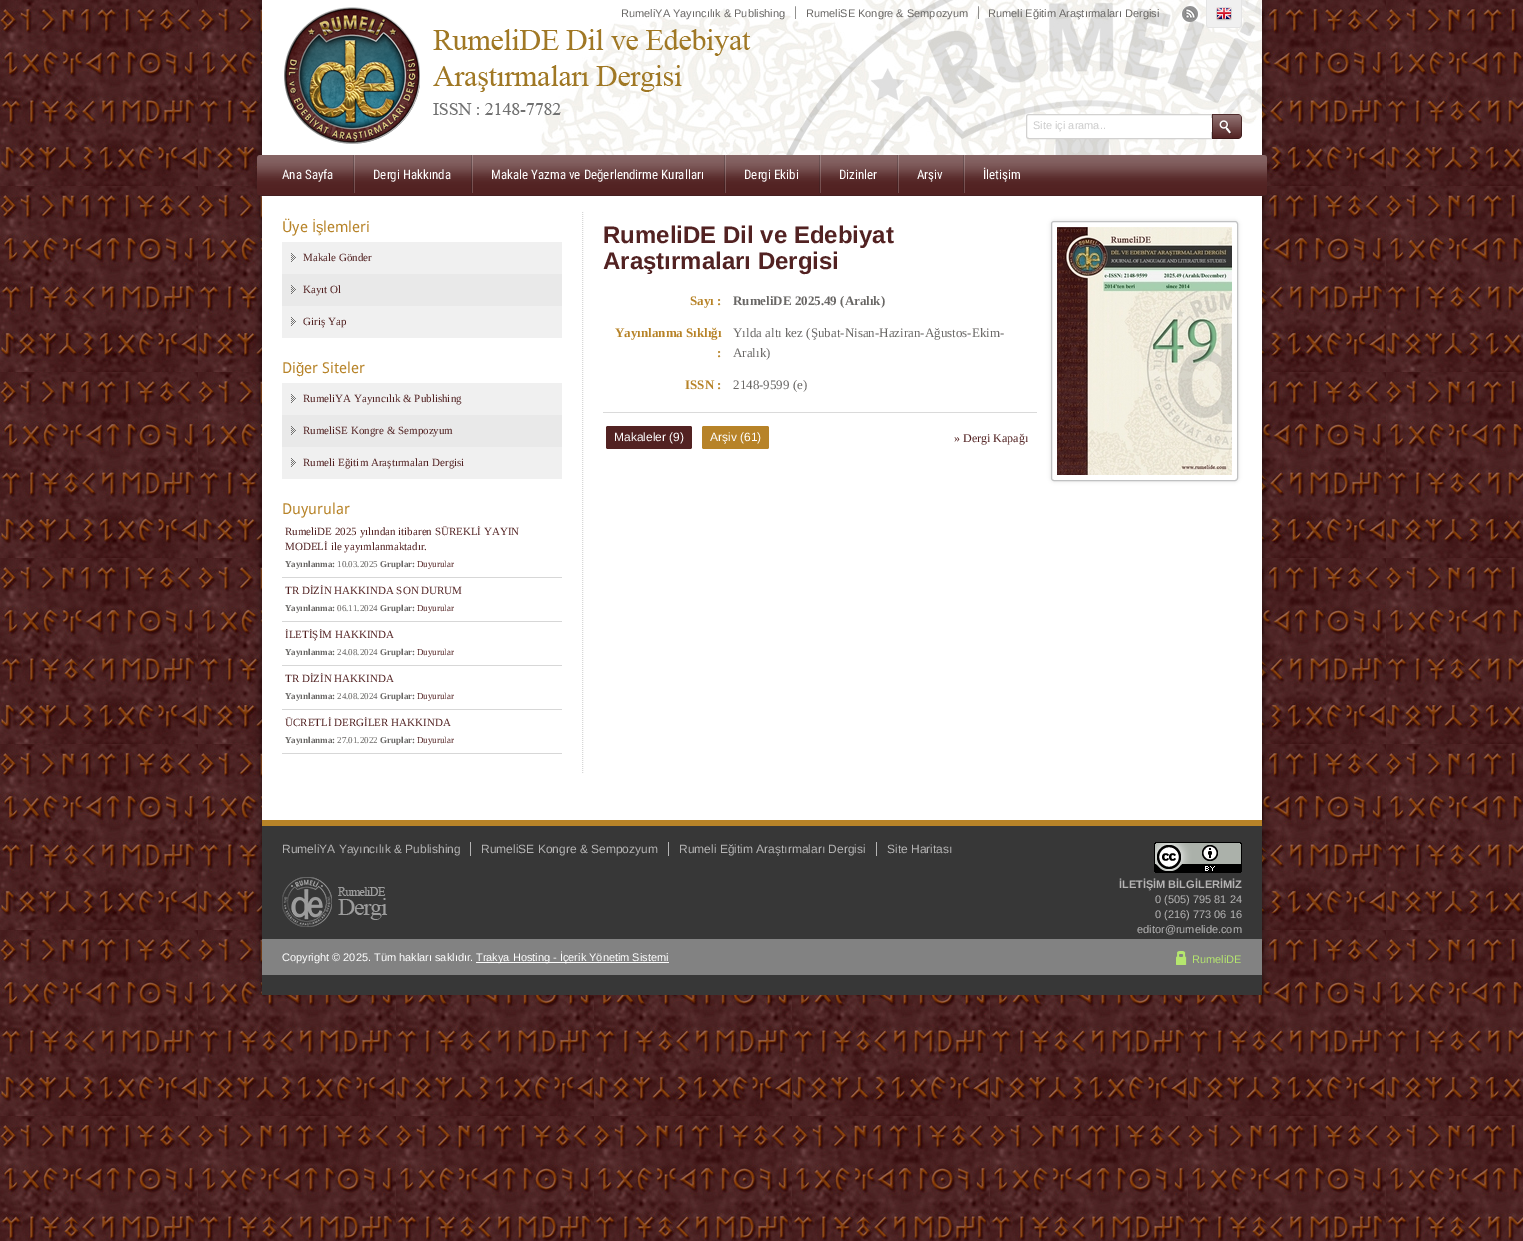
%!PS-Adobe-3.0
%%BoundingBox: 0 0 1523 1241
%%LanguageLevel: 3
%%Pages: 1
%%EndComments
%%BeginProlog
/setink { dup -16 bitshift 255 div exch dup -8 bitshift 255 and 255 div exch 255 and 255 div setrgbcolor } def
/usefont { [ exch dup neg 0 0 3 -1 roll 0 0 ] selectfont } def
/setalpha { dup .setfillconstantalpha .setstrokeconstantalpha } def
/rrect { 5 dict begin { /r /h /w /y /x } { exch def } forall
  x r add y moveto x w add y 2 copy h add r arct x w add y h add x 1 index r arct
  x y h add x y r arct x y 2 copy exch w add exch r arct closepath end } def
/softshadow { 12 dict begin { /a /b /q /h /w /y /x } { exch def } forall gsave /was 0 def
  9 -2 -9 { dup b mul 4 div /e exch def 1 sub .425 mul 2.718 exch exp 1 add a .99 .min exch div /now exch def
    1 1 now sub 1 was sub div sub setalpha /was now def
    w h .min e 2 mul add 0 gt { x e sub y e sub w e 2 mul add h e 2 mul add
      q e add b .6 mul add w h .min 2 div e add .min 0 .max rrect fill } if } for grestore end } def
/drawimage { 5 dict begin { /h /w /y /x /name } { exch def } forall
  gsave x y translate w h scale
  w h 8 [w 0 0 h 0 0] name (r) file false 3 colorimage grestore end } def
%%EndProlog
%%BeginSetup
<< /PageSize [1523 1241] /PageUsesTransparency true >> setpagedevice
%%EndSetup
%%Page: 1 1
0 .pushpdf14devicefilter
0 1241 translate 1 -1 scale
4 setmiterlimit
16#FFFFFF setink
0 0 1523 1241 rectfill
(img1.raw) 0 0 1523 1241 drawimage
(img2.raw) 255 0 1014 196 drawimage
(img3.raw) 540 0 722 155 drawimage
(img4.raw) 284 7 467 137 drawimage
/LiberationSans-Regular 11 usefont
16#696765 setink
621 17 moveto (RumeliYA Yayıncılık & Publishing) show
/LiberationSerif-Regular 14 usefont
794 16 moveto (|) show
/LiberationSans-Regular 11 usefont
806 17 moveto (RumeliSE Kongre & Sempozyum) show
/LiberationSerif-Regular 14 usefont
977 16 moveto (|) show
/LiberationSans-Regular 11 usefont
988 17 moveto (Rumeli Eğitim Araştırmaları Dergisi) show
(img5.raw) 1182 6 16 16 drawimage
16#F0F0F0 setink
1207 0 moveto 1241 0 lineto 1241 25 lineto 1241 26 1240 27 1239 27 curveto 1209 27 lineto 1208 27 1207 26 1207 25 curveto closepath fill
16#E5E5E5 setink
1206 0 moveto 1242 0 lineto 1242 25 lineto 1242 26.5 1240.5 28 1239 28 curveto 1209 28 lineto 1207.5 28 1206 26.5 1206 25 curveto closepath 1207 0 moveto 1241 0 lineto 1241 3.5 1241.5 25 1240.5 26 curveto 1239.5 27 lineto 1208.5 27 lineto 1207.5 26.5 lineto 1207 25 lineto closepath eofill
(img6.raw) 1216 7 16 14 drawimage
16#FFFFFF setink
1029 114.5 moveto 1211.5 114.5 lineto 1211.5 138.5 lineto 1029 138.5 lineto 1027.5 138.5 1026.5 137.5 1026.5 136 curveto 1026.5 117 lineto 1026.5 115.5 1027.5 114.5 1029 114.5 curveto closepath gsave fill grestore
16#D2D1D0 setink
stroke
16#FFFFFF setink
1211 118 1 14 rectfill
16#CCCCCC setink
1033 129 moveto (Site içi arama..) show
16#522222 setink
1212 114 moveto 1238 114 lineto 1240 114 1242 116 1242 118 curveto 1242 135 lineto 1242 137 1240 139 1238 139 curveto 1212 139 lineto closepath fill
(img7.raw) 1212 114 30 25 drawimage
257 155 1010 41 3 rrect fill
(img8.raw) 257 155 1010 41 drawimage
/RobotoCondensed-Regular 13 usefont
16#FFFFFF setink
282 179 moveto (Ana Sayfa) show
(img9.raw) 353 155 2 38 drawimage
373 179 moveto (Dergi Hakkında) show
(img9.raw) 471 155 2 38 drawimage
491 179 moveto (Makale Yazma ve Değerlendirme Kuralları) show
(img9.raw) 724 155 2 38 drawimage
744 179 moveto (Dergi Ekibi) show
(img9.raw) 819 155 2 38 drawimage
839 179 moveto (Dizinler) show
(img9.raw) 897 155 2 38 drawimage
917 179 moveto (Arşiv) show
(img9.raw) 963 155 2 38 drawimage
983 179 moveto (İletişim) show
(img10.raw) 255 196 1014 624 drawimage
16#D7D7D7 setink
[1 1] 0 setdash
582.5 212 moveto 582.5 774 lineto stroke
/DroidSans-Regular 15 usefont
16#B78328 setink
282 232 moveto (Üye) show
/LiberationSans-Regular 15 usefont
312 232 moveto (İş) show
/DroidSans-Regular 15 usefont
323 232 moveto (lemleri) show
16#F0F0F0 setink
282 242 280 32 rectfill
(img11.raw) 291 253 5 9 drawimage
/LiberationSerif-Regular 11 usefont
16#522222 setink
303 261 moveto (Makale Gönder) show
16#E9E9E9 setink
282 274 280 32 rectfill
(img12.raw) 291 285 5 9 drawimage
16#522222 setink
303 293 moveto (Kayıt Ol) show
16#F0F0F0 setink
282 306 280 32 rectfill
(img11.raw) 291 317 5 9 drawimage
16#522222 setink
303 325 moveto (Giriş Yap) show
/DroidSans-Regular 15 usefont
16#B78328 setink
282 373 moveto (Di) show
/LiberationSans-Regular 15 usefont
296 373 moveto (ğ) show
/DroidSans-Regular 15 usefont
304 373 moveto (er Siteler) show
16#F0F0F0 setink
282 383 280 32 rectfill
(img11.raw) 291 394 5 9 drawimage
/LiberationSerif-Regular 11 usefont
16#522222 setink
303 402 moveto (RumeliYA Yayıncılık & Publishing) show
16#E9E9E9 setink
282 415 280 32 rectfill
(img12.raw) 291 426 5 9 drawimage
16#522222 setink
303 434 moveto (RumeliSE Kongre & Sempozyum) show
16#F0F0F0 setink
282 447 280 32 rectfill
(img11.raw) 291 458 5 9 drawimage
16#522222 setink
303 466 moveto (Rumeli Eğitim Araştırmaları Dergisi) show
/DroidSans-Regular 15 usefont
16#B78328 setink
282 514 moveto (Duyurular) show
16#D7D7D7 setink
282 577 280 1 rectfill
/LiberationSerif-Regular 11 usefont
16#522222 setink
285 535 moveto (RumeliDE 2025 yılından itibaren SÜREKLİ YAYIN) show
285 550 moveto (MODELİ ile yayımlanmaktadır.) show
/LiberationSerif-Bold 9 usefont
16#696765 setink
285 567 moveto (Yayınlanma:) show
/LiberationSerif-Regular 9 usefont
337 567 moveto (10.03.2025) show
/LiberationSerif-Bold 9 usefont
380 567 moveto (Gruplar:) show
/LiberationSerif-Regular 9 usefont
16#522222 setink
417 567 moveto (Duyurular) show
16#D7D7D7 setink
282 621 280 1 rectfill
/LiberationSerif-Regular 11 usefont
16#522222 setink
285 594 moveto (TR DİZİN HAKKINDA SON DURUM) show
/LiberationSerif-Bold 9 usefont
16#696765 setink
285 611 moveto (Yayınlanma:) show
/LiberationSerif-Regular 9 usefont
337 611 moveto (06.11.2024) show
/LiberationSerif-Bold 9 usefont
380 611 moveto (Gruplar:) show
/LiberationSerif-Regular 9 usefont
16#522222 setink
417 611 moveto (Duyurular) show
16#D7D7D7 setink
282 665 280 1 rectfill
/LiberationSerif-Regular 11 usefont
16#522222 setink
285 638 moveto (İLETİŞİM HAKKINDA) show
/LiberationSerif-Bold 9 usefont
16#696765 setink
285 655 moveto (Yayınlanma:) show
/LiberationSerif-Regular 9 usefont
337 655 moveto (24.08.2024) show
/LiberationSerif-Bold 9 usefont
380 655 moveto (Gruplar:) show
/LiberationSerif-Regular 9 usefont
16#522222 setink
417 655 moveto (Duyurular) show
16#D7D7D7 setink
282 709 280 1 rectfill
/LiberationSerif-Regular 11 usefont
16#522222 setink
285 682 moveto (TR DİZİN HAKKINDA) show
/LiberationSerif-Bold 9 usefont
16#696765 setink
285 699 moveto (Yayınlanma:) show
/LiberationSerif-Regular 9 usefont
337 699 moveto (24.08.2024) show
/LiberationSerif-Bold 9 usefont
380 699 moveto (Gruplar:) show
/LiberationSerif-Regular 9 usefont
16#522222 setink
417 699 moveto (Duyurular) show
16#D7D7D7 setink
282 753 280 1 rectfill
/LiberationSerif-Regular 11 usefont
16#522222 setink
285 726 moveto (ÜCRETLİ DERGİLER HAKKINDA) show
/LiberationSerif-Bold 9 usefont
16#696765 setink
285 743 moveto (Yayınlanma:) show
/LiberationSerif-Regular 9 usefont
337 743 moveto (27.01.2022) show
/LiberationSerif-Bold 9 usefont
380 743 moveto (Gruplar:) show
/LiberationSerif-Regular 9 usefont
16#522222 setink
417 743 moveto (Duyurular) show
/LiberationSans-Bold 24 usefont
603 243 moveto (RumeliDE Dil ve Edebiyat) show
603 269 moveto (Araştırmaları Dergisi) show
/LiberationSerif-Bold 13 usefont
16#B78328 setink
690 305 moveto (Sayı :) show
16#696765 setink
733 305 moveto (RumeliDE 2025.49 \(Aralık\)) show
16#B78328 setink
615 337 moveto (Yayınlanma Sıklığı) show
717 357 moveto (:) show
/LiberationSerif-Regular 13 usefont
16#696765 setink
733 337 moveto (Yılda altı kez \(Şubat-Nisan-Haziran-Ağustos-Ekim-) show
733 357 moveto (Aralık\)) show
/LiberationSerif-Bold 13 usefont
16#B78328 setink
685 389 moveto (ISSN :) show
/LiberationSerif-Regular 13 usefont
16#696765 setink
733 389 moveto (2148-9599 \(e\)) show
16#DADADA setink
603 412 434 1 rectfill
16#522222 setink
606 426 86 23 2 rrect fill
/LiberationSans-Regular 12 usefont
16#FFFFFF setink
614 441 moveto (Makaleler \(9\)) show
16#B78328 setink
702 426 67 23 2 rrect fill
16#FFFFFF setink
710 441 moveto (Arşiv \(61\)) show
/LiberationSerif-Regular 12 usefont
16#522222 setink
954 442 moveto (» Dergi Kapağı) show
16#000000 setink
1051 221 187 260 3 2 0.12 softshadow
16#FFFFFF setink
1051.5 221.5 186 259 2.5 rrect gsave fill grestore
16#C0C1C2 setink
[] 0 setdash
stroke
(img13.raw) 1057 227 175 248 drawimage
(img14.raw) 255 820 1014 175 drawimage
[
    [262 826 1000 169 16#373737]
    [262 820 1000 6 16#B78328]
    [470 842 1 14 16#B5B4B4]
] { aload pop setink rectfill } forall
/LiberationSans-Regular 12 usefont
282 853 moveto (RumeliYA Yayıncılık & Publishing) show
668 842 1 14 rectfill
481 853 moveto (RumeliSE Kongre & Sempozyum) show
876 842 1 14 rectfill
679 853 moveto (Rumeli Eğitim Araştırmaları Dergisi) show
887 853 moveto (Site Haritası) show
(img15.raw) 282 877 106 50 drawimage
(img16.raw) 1154 842 88 31 drawimage
/LiberationSans-Bold 11 usefont
1119 888 moveto (İLETİŞİM BİLGİLERİMİZ) show
/LiberationSans-Regular 11 usefont
[
    [(0 \(505\) 795 81 24) 1155 903]
    [(0 \(216\) 773 06 16) 1155 918]
    [(editor@rumelide.com) 1137 933]
] { aload pop moveto show } forall
16#828282 setink
262 939 1000 36 rectfill
16#FFFFFF setink
282 961 moveto (Copyright © 2025. Tüm hakları saklıdır.) show
476 962 193 1 rectfill
476 961 moveto (Trakya Hosting - İçerik Yönetim Sistemi) show
(img17.raw) 1176 951 11 14 drawimage
16#B5E66E setink
1192 963 moveto (RumeliDE) show
.poppdf14devicefilter showpage
%%EOF
